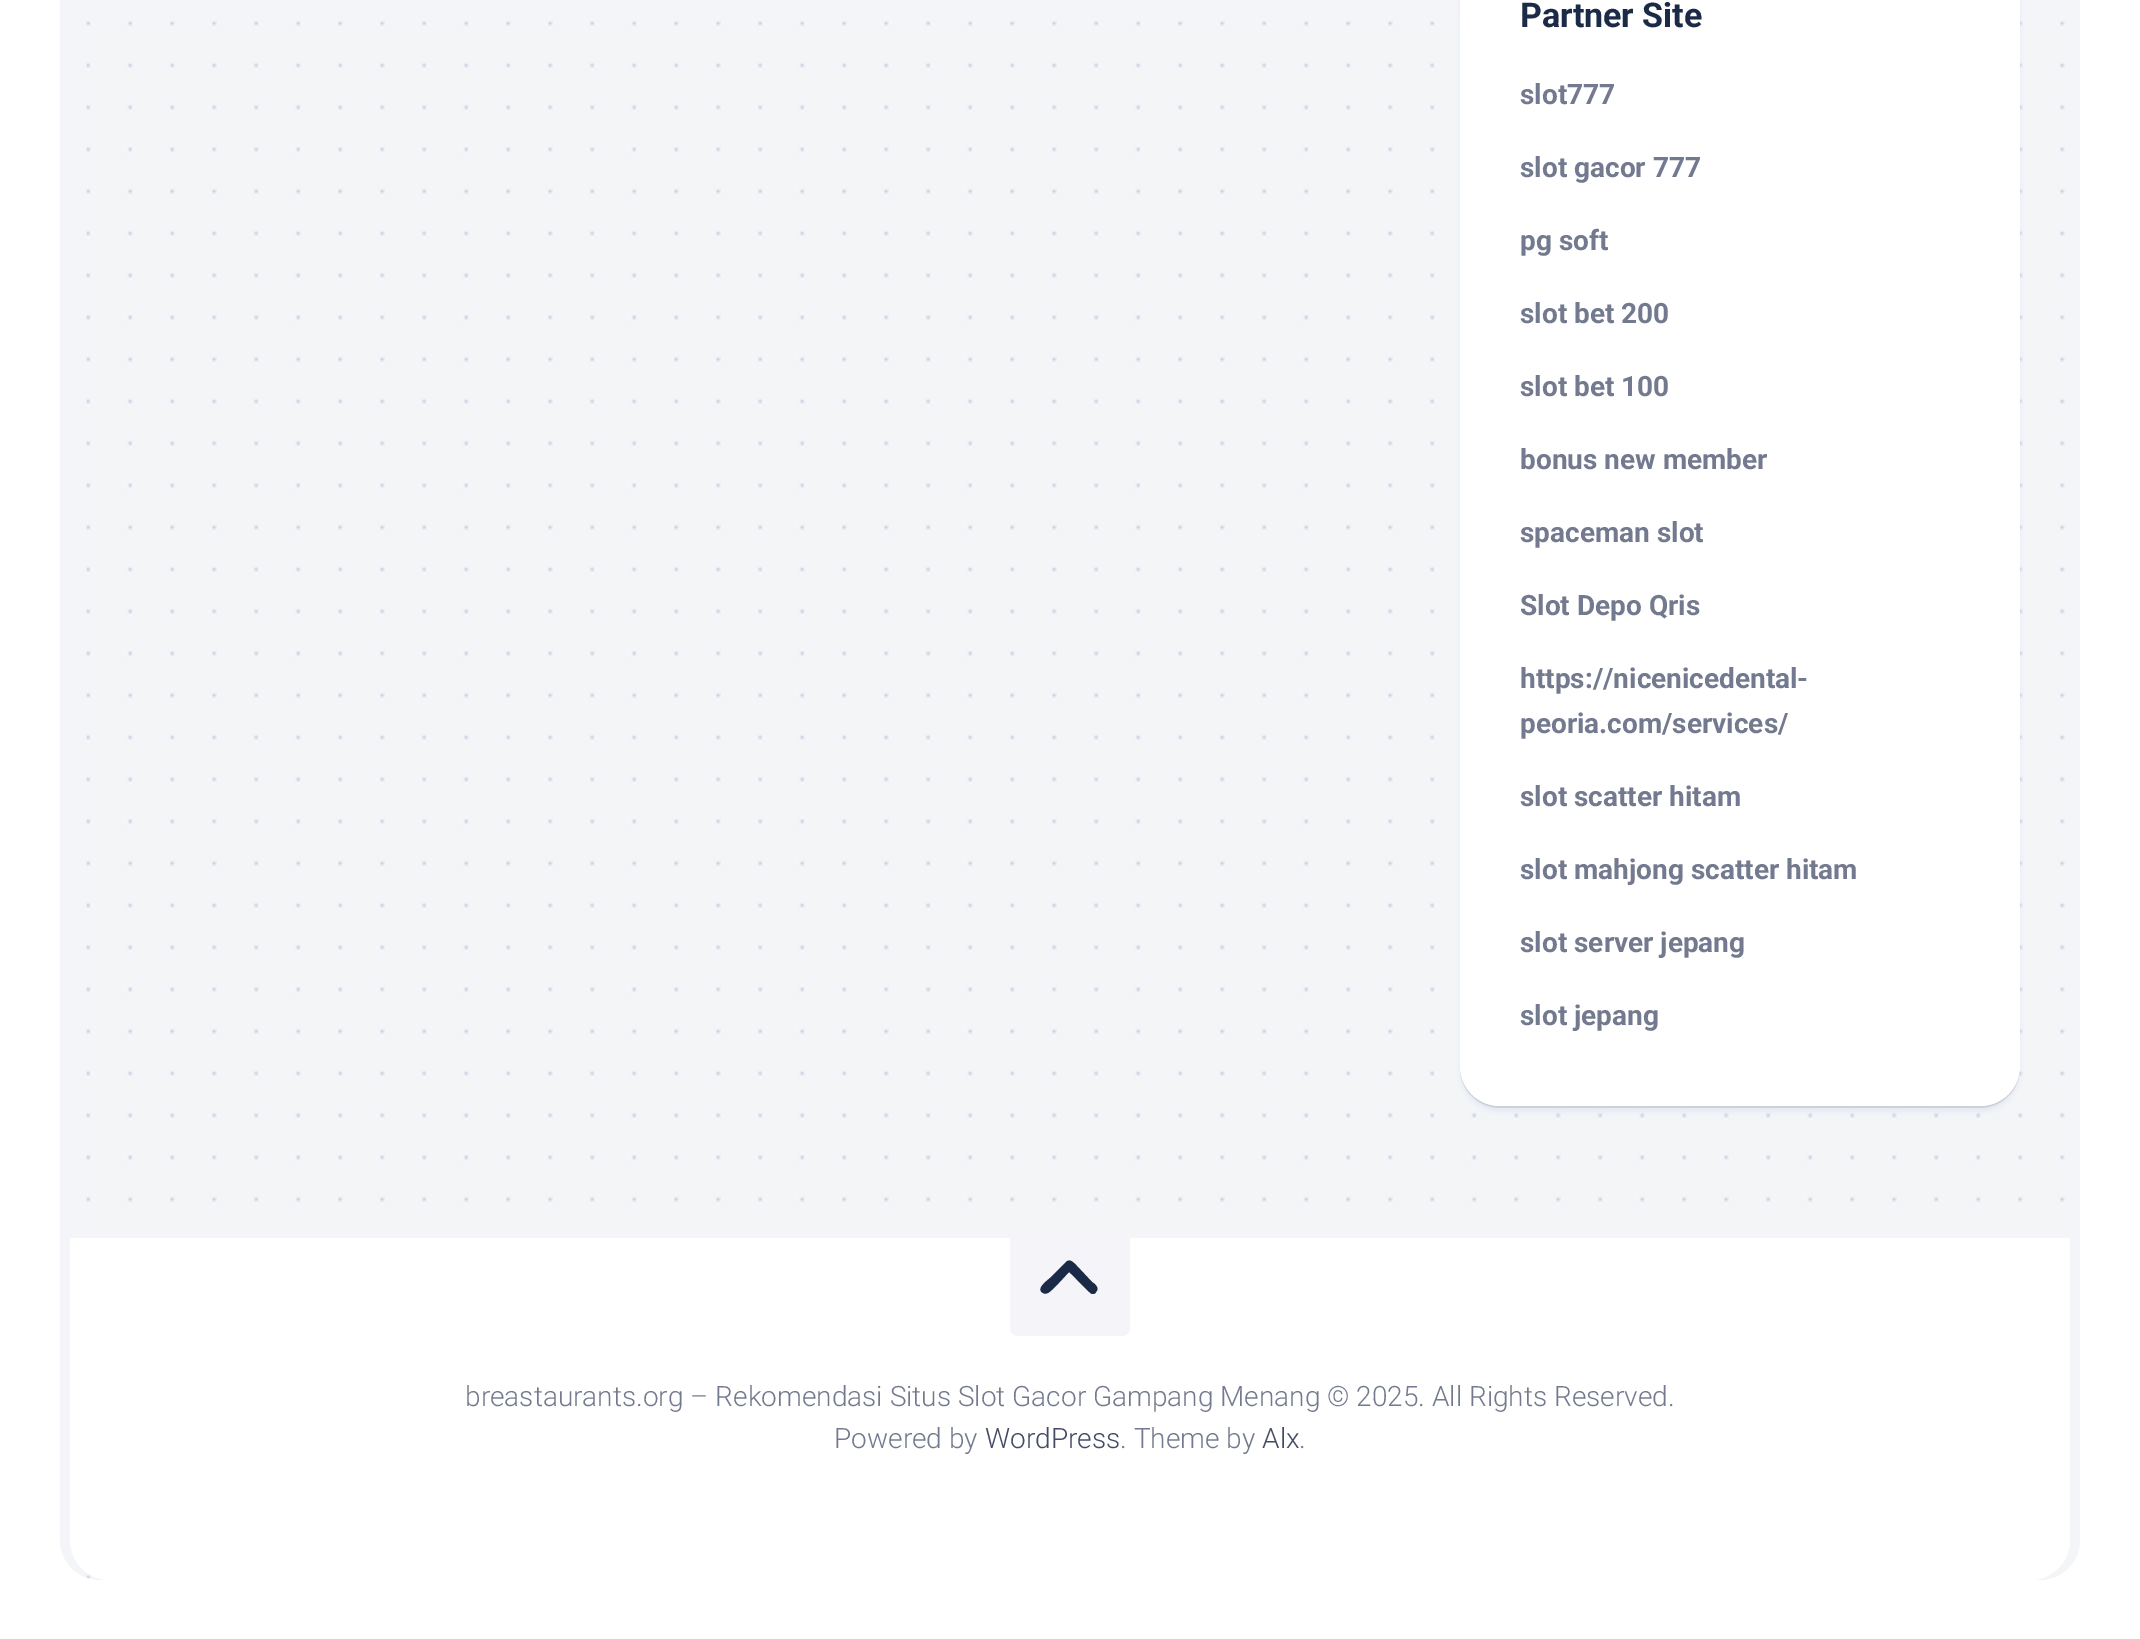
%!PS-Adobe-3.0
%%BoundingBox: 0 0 2140 1639
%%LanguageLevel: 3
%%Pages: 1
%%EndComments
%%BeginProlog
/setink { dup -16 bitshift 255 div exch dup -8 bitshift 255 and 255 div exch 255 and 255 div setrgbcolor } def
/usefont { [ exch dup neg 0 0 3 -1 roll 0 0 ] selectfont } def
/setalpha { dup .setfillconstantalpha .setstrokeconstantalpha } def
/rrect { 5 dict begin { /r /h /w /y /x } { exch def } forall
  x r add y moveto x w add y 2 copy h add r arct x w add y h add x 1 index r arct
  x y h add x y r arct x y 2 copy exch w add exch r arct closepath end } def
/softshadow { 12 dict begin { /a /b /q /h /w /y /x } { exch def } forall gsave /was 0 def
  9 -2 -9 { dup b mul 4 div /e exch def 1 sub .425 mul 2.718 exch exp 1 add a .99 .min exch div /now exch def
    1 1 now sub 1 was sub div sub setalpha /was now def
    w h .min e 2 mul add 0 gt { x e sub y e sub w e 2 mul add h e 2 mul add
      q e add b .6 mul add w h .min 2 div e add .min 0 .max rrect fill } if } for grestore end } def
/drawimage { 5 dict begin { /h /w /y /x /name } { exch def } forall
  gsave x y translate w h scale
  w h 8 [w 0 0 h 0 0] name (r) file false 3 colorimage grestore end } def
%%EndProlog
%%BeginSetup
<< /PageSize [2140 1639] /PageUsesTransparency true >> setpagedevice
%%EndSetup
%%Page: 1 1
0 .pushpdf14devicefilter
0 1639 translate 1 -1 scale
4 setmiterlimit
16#FFFFFF setink
0 0 2140 1639 rectfill
16#F4F5F8 setink
60 -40 2020 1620 40 rrect fill
(img1.raw) 86 21 1979 1559 drawimage
16#C1CBE6 setink
1460 -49 560 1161 40 3 0.3 softshadow
0.1 setalpha
16#000000 setink
1460 1066 moveto 1460 1068 lineto 1460 1090 1478 1108 1500 1108 curveto 1980 1108 lineto 2002 1108 2020 1090 2020 1068 curveto 2020 1066 lineto 2020 1088 2002 1106 1980 1106 curveto 1500 1106 lineto 1478 1106 1460 1088 1460 1066 curveto closepath fill
1 setalpha
16#FFFFFF setink
1460 -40 560 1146 40 rrect fill
/Roboto-Bold 34 usefont
16#1B2B47 setink
1520 27 moveto (Partner Site) show
/Roboto-Bold 28 usefont
16#73798E setink
[
    [(slot777) 1520 104]
    [(slot gacor 777) 1520 177]
    [(pg soft) 1520 250]
    [(slot bet 200) 1520 323]
    [(slot bet 100) 1520 396]
    [(bonus new member) 1520 469]
    [(spaceman slot) 1520 542]
    [(Slot Depo Qris) 1520 615]
    [(https://nicenicedental-) 1520 688]
    [(peoria.com/services/) 1520 733]
    [(slot scatter hitam) 1520 806]
    [(slot mahjong scatter hitam) 1520 879]
    [(slot server jepang) 1520 952]
    [(slot jepang) 1520 1025]
] { aload pop moveto show } forall
16#FFFFFF setink
70 1236 moveto 2070 1236 lineto 2070 1540 lineto 2070 1562 2052 1580 2030 1580 curveto 110 1580 lineto 88 1580 70 1562 70 1540 curveto closepath fill
16#F4F5F8 setink
70 1236 2000 2 rectfill
16#F5F5F9 setink
1010 1238 moveto 1130 1238 lineto 1130 1328 lineto 1130 1332.5 1126.5 1336 1122 1336 curveto 1018 1336 lineto 1013.5 1336 1010 1332.5 1010 1328 curveto closepath fill
16#1B2B47 setink
1066 1262 moveto 1070 1258 1074 1263 1077 1266 curveto 1092 1282 lineto 1095 1284 1100 1288 1096 1292 curveto 1095 1294 1094 1294 1092 1294 curveto 1089 1293 1073 1275 1069 1272 curveto 1056 1286 lineto 1053 1288 1048 1296 1043 1293 curveto 1035 1289 1048 1280 1050 1278 curveto closepath fill
/Roboto-Light 28 usefont
16#73798E setink
465 1406 moveto (breastaurants.org – Rekomendasi Situs Slot Gacor Gampang Menang © 2025. All Rights Reserved.) show
834 1448 moveto (Powered by) show
16#434B64 setink
985 1448 moveto (WordPress) show
16#73798E setink
1120 1448 moveto (. Theme by) show
16#434B64 setink
1262 1448 moveto (Alx) show
16#73798E setink
1299 1448 moveto (.) show
.poppdf14devicefilter showpage
%%EOF
